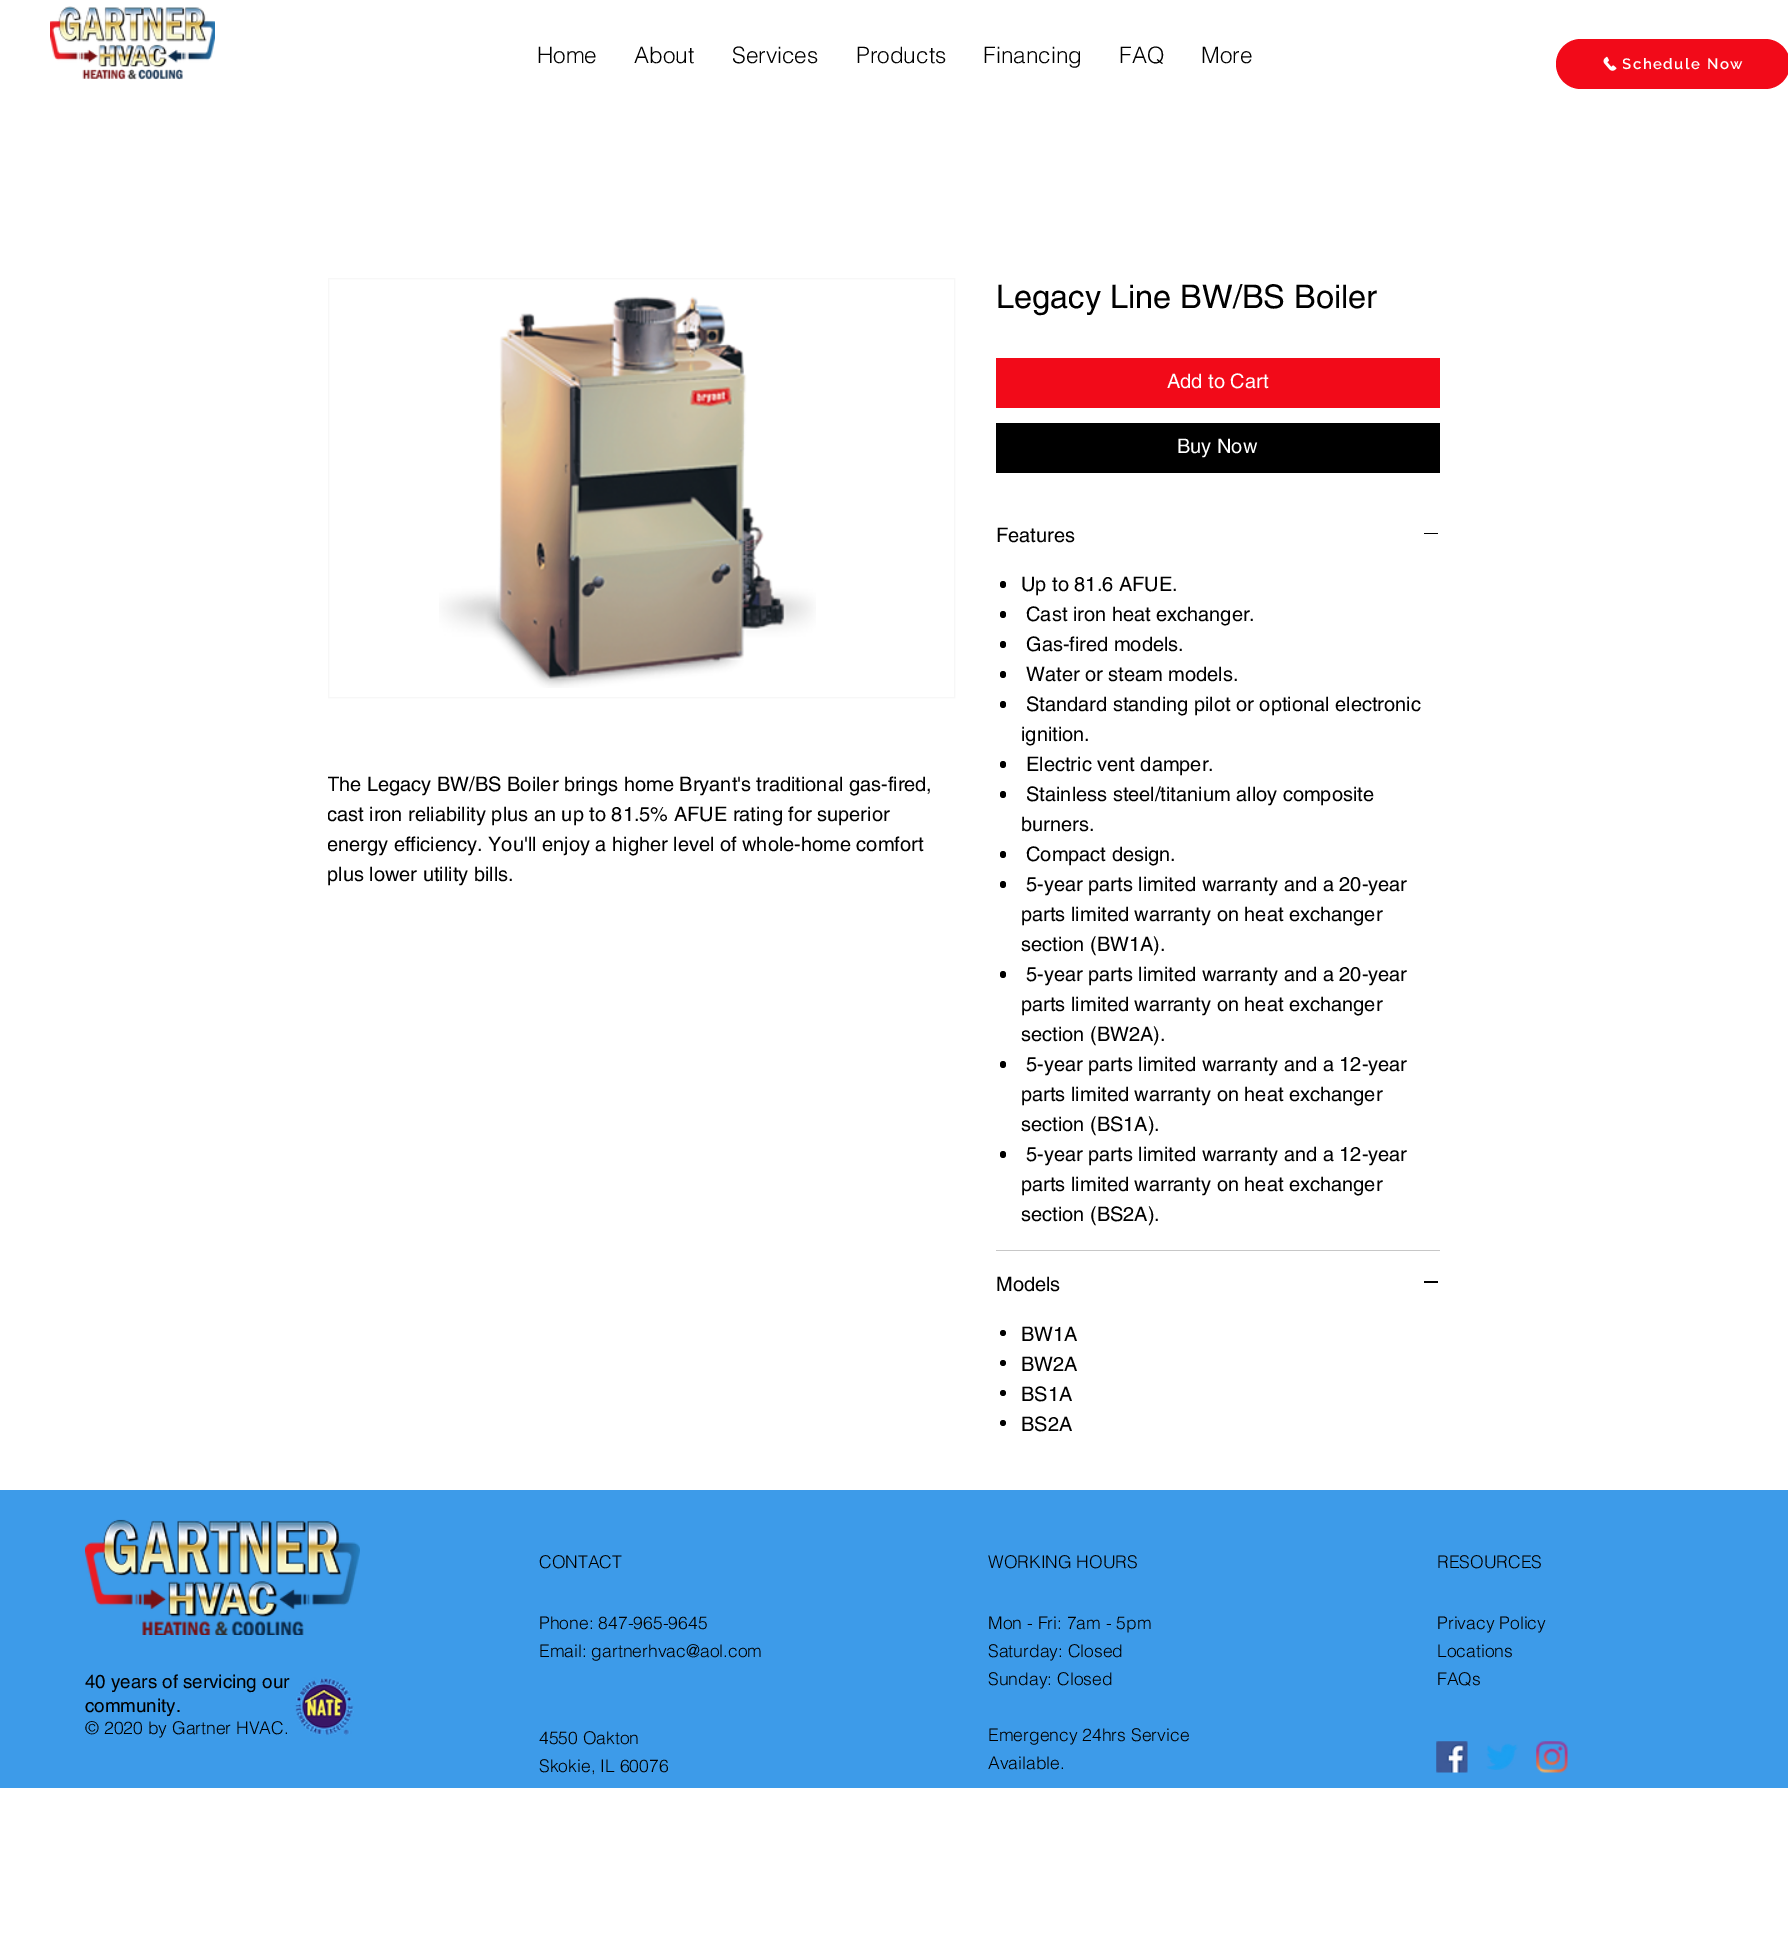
%!PS-Adobe-3.0
%%BoundingBox: 0 0 1788 1946
%%LanguageLevel: 3
%%Pages: 1
%%EndComments
%%BeginProlog
/setink { dup -16 bitshift 255 div exch dup -8 bitshift 255 and 255 div exch 255 and 255 div setrgbcolor } def
/usefont { [ exch dup neg 0 0 3 -1 roll 0 0 ] selectfont } def
/disc { newpath 0 360 arc closepath } def
/rrect { 5 dict begin { /r /h /w /y /x } { exch def } forall
  x r add y moveto x w add y 2 copy h add r arct x w add y h add x 1 index r arct
  x y h add x y r arct x y 2 copy exch w add exch r arct closepath end } def
/drawimage { 5 dict begin { /h /w /y /x /name } { exch def } forall
  gsave x y translate w h scale
  w h 8 [w 0 0 h 0 0] name (r) file false 3 colorimage grestore end } def
%%EndProlog
%%BeginSetup
<< /PageSize [1788 1946] >> setpagedevice
%%EndSetup
%%Page: 1 1
0 1946 translate 1 -1 scale
4 setmiterlimit
16#FFFFFF setink
0 0 1788 1946 rectfill
(img1.raw) 50 6 165 74 drawimage
/helvetica-Light 22.5 usefont
16#000000 setink
[
    [(Home) 537 63]
    [(About) 634 63]
    [(Services) 732 63]
    [(Products) 856 63]
    [(Financing) 983 63]
    [(FAQ) 1119 63]
    [(More) 1201 63]
] { aload pop moveto show } forall
16#F20A19 setink
1556 39 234 50 25 rrect fill
(img2.raw) 1603 56 14 15 drawimage
gsave
1623 55 121 18 rectclip
/Raleway-SemiBold 15 usefont
16#FFFFFF setink
1622 69 moveto 1.5 0 (Schedule Now) ashow
grestore
16#F7F7F7 setink
328.5 278.5 626 419 rectstroke
(img3.raw) 439 296 377 392 drawimage
gsave
328 770 625 120 rectclip
/helvetica-Regular 20 usefont
16#000000 setink
[
    [(The Legacy BW/BS Boiler brings home Bryant's traditional gas-fired,) 327 791]
    [(cast iron reliability plus an up to 81.5% AFUE rating for superior) 327 821]
    [(energy efficiency. You'll enjoy a higher level of whole-home comfort) 327 851]
] { aload pop moveto show } forall
grestore
/helvetica-Regular 20 usefont
16#000000 setink
327 881 moveto (plus lower utility bills.) show
/helvetica-Regular 32.5 usefont
996 308 moveto (Legacy Line BW/BS Boiler) show
16#F20A19 setink
996 358 444 50 rectfill
/helvetica-Regular 20 usefont
16#FFFFFF setink
1167 388 moveto (Add to Cart) show
16#000000 setink
996 423 444 50 rectfill
16#FFFFFF setink
1177 453 moveto (Buy Now) show
16#C7C7C7 setink
996 1250 444 1 rectfill
16#000000 setink
996 542 moveto (Features) show
1424 533 14 1 rectfill
1000 581 6 7 3 rrect fill
1021 591 moveto (Up to 81.6 AFUE.) show
1000 611 6 7 3 rrect fill
1026 621 moveto (Cast iron heat exchanger.) show
1000 641 6 7 3 rrect fill
1026 651 moveto (Gas-fired models.) show
1000 671 6 7 3 rrect fill
1026 681 moveto (Water or steam models.) show
1000 701 6 7 3 rrect fill
1026 711 moveto (Standard standing pilot or optional electronic) show
1021 741 moveto (ignition.) show
1000 761 6 7 3 rrect fill
1026 771 moveto (Electric vent damper.) show
1000 791 6 7 3 rrect fill
1026 801 moveto (Stainless steel/titanium alloy composite) show
1021 831 moveto (burners.) show
1000 851 6 7 3 rrect fill
1026 861 moveto (Compact design.) show
1000 881 6 7 3 rrect fill
[
    [(5-year parts limited warranty and a 20-year) 1026 891]
    [(parts limited warranty on heat exchanger) 1021 921]
    [(section \(BW1A\).) 1021 951]
] { aload pop moveto show } forall
1000 971 6 7 3 rrect fill
[
    [(5-year parts limited warranty and a 20-year) 1026 981]
    [(parts limited warranty on heat exchanger) 1021 1011]
    [(section \(BW2A\).) 1021 1041]
] { aload pop moveto show } forall
1000 1061 6 7 3 rrect fill
[
    [(5-year parts limited warranty and a 12-year) 1026 1071]
    [(parts limited warranty on heat exchanger) 1021 1101]
    [(section \(BS1A\).) 1021 1131]
] { aload pop moveto show } forall
1000 1151 6 7 3 rrect fill
[
    [(5-year parts limited warranty and a 12-year) 1026 1161]
    [(parts limited warranty on heat exchanger) 1021 1191]
    [(section \(BS2A\).) 1021 1221]
    [(Models) 996 1291]
] { aload pop moveto show } forall
1424 1281 14 2 rectfill
1003 1333 3 disc fill
1021 1341 moveto (BW1A) show
1003 1363 3 disc fill
1021 1371 moveto (BW2A) show
1003 1393 3 disc fill
1021 1401 moveto (BS1A) show
1003 1423 3 disc fill
1021 1431 moveto (BS2A) show
16#3D9BE9 setink
0 1490 1788 298 rectfill
/helvetica-Light 17.5 usefont
16#000000 setink
[
    [(CONTACT) 539 1568]
    [(Phone: 847-965-9645) 539 1629]
    [(Email: gartnerhvac@aol.com) 539 1657]
    [(4550 Oakton) 539 1744]
    [(Skokie, IL 60076) 539 1772]
    [(WORKING HOURS) 988 1568]
    [(Mon - Fri: 7am - 5pm) 988 1629]
    [(Saturday: Closed) 988 1657]
    [(Sunday: Closed) 988 1685]
    [(Emergency 24hrs Service) 988 1741]
    [(Available.) 988 1769]
    [(RESOURCES) 1437 1568]
    [(Privacy Policy) 1437 1629]
    [(Locations) 1437 1657]
    [(FAQs) 1437 1685]
] { aload pop moveto show } forall
(img4.raw) 1436 1741 32 32 drawimage
(img5.raw) 1486 1743 32 27 drawimage
(img6.raw) 1536 1741 32 32 drawimage
(img7.raw) 85 1519 275 116 drawimage
/helvetica-Regular 18.75 usefont
85 1688 moveto (40 years of servicing our) show
85 1712 moveto (community.) show
/helvetica-Light 17.5 usefont
85 1734 moveto (© 2020 by Gartner HVAC.) show
(img8.raw) 295 1677 59 58 drawimage
showpage
%%EOF
